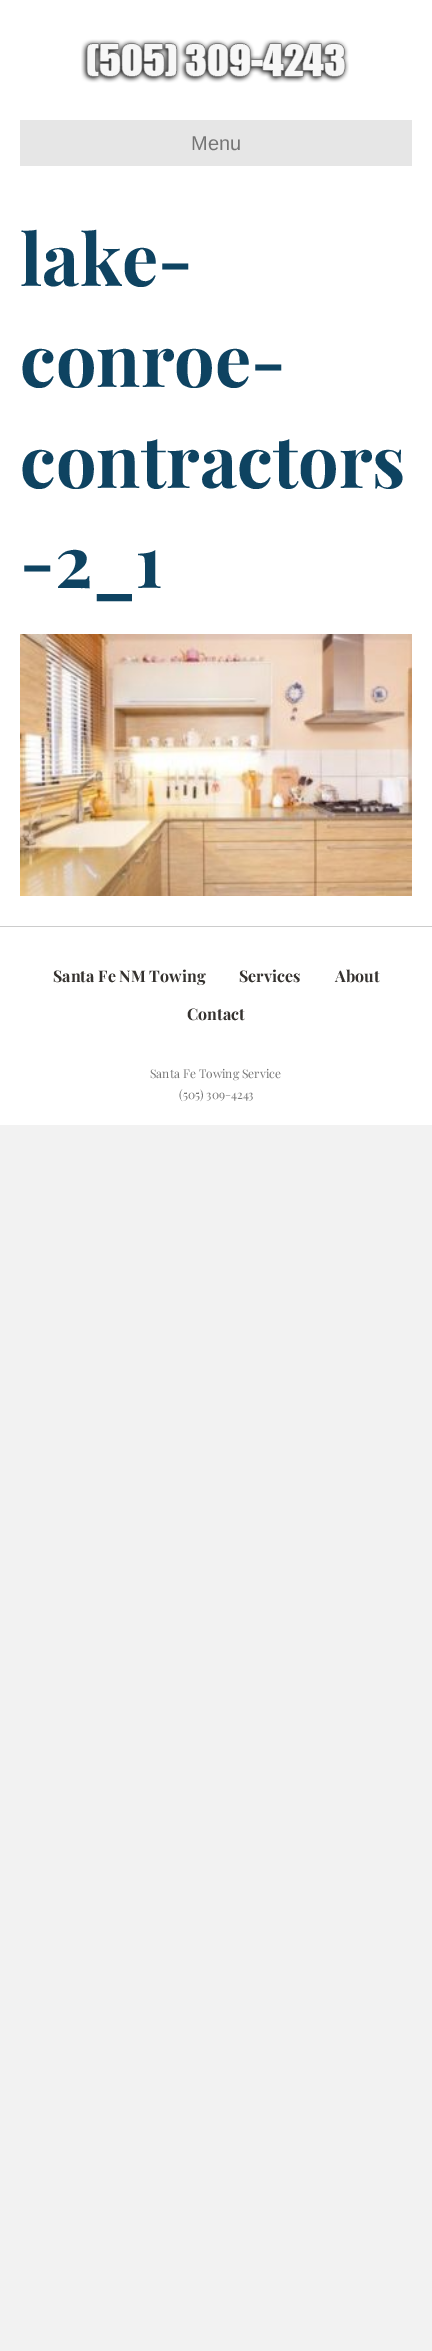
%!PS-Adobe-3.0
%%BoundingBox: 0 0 432 2351
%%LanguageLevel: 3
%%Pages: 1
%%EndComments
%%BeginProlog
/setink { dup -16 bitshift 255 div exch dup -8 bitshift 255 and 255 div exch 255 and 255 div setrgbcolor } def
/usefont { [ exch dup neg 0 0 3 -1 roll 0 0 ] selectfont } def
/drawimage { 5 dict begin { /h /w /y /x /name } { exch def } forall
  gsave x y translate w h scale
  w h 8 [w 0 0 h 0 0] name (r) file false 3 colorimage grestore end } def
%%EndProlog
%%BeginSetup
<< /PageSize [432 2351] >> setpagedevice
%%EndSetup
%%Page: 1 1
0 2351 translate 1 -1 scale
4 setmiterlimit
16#F2F2F2 setink
0 0 432 2351 rectfill
16#FFFFFF setink
0 0 432 926 rectfill
(img1.raw) 81 39 268 44 drawimage
16#E6E6E6 setink
20 120 392 46 rectfill
/LiberationSans-Regular 20 usefont
16#757575 setink
191 150 moveto (Menu) show
/PlayfairDisplay-Bold 72 usefont
16#0E4361 setink
[
    [(lake-) 20 286]
    [(conroe-) 20 387]
    [(contractors) 20 488]
    [(-2_1) 20 588]
] { aload pop moveto show } forall
(img2.raw) 20 634 392 262 drawimage
16#FFFFFF setink
0 927 432 198 rectfill
16#CCCCCC setink
0 926 432 1 rectfill
/PlayfairDisplay-Bold 16 usefont
16#35322F setink
[
    [(Santa Fe NM Towing) 53 982]
    [(Services) 239 982]
    [(About) 335 982]
    [(Contact) 187 1020]
] { aload pop moveto show } forall
/PlayfairDisplay-Regular 12 usefont
16#757575 setink
150 1078 moveto (Santa Fe Towing Service) show
179 1099 moveto (\(505\) 309-4243) show
showpage
%%EOF
